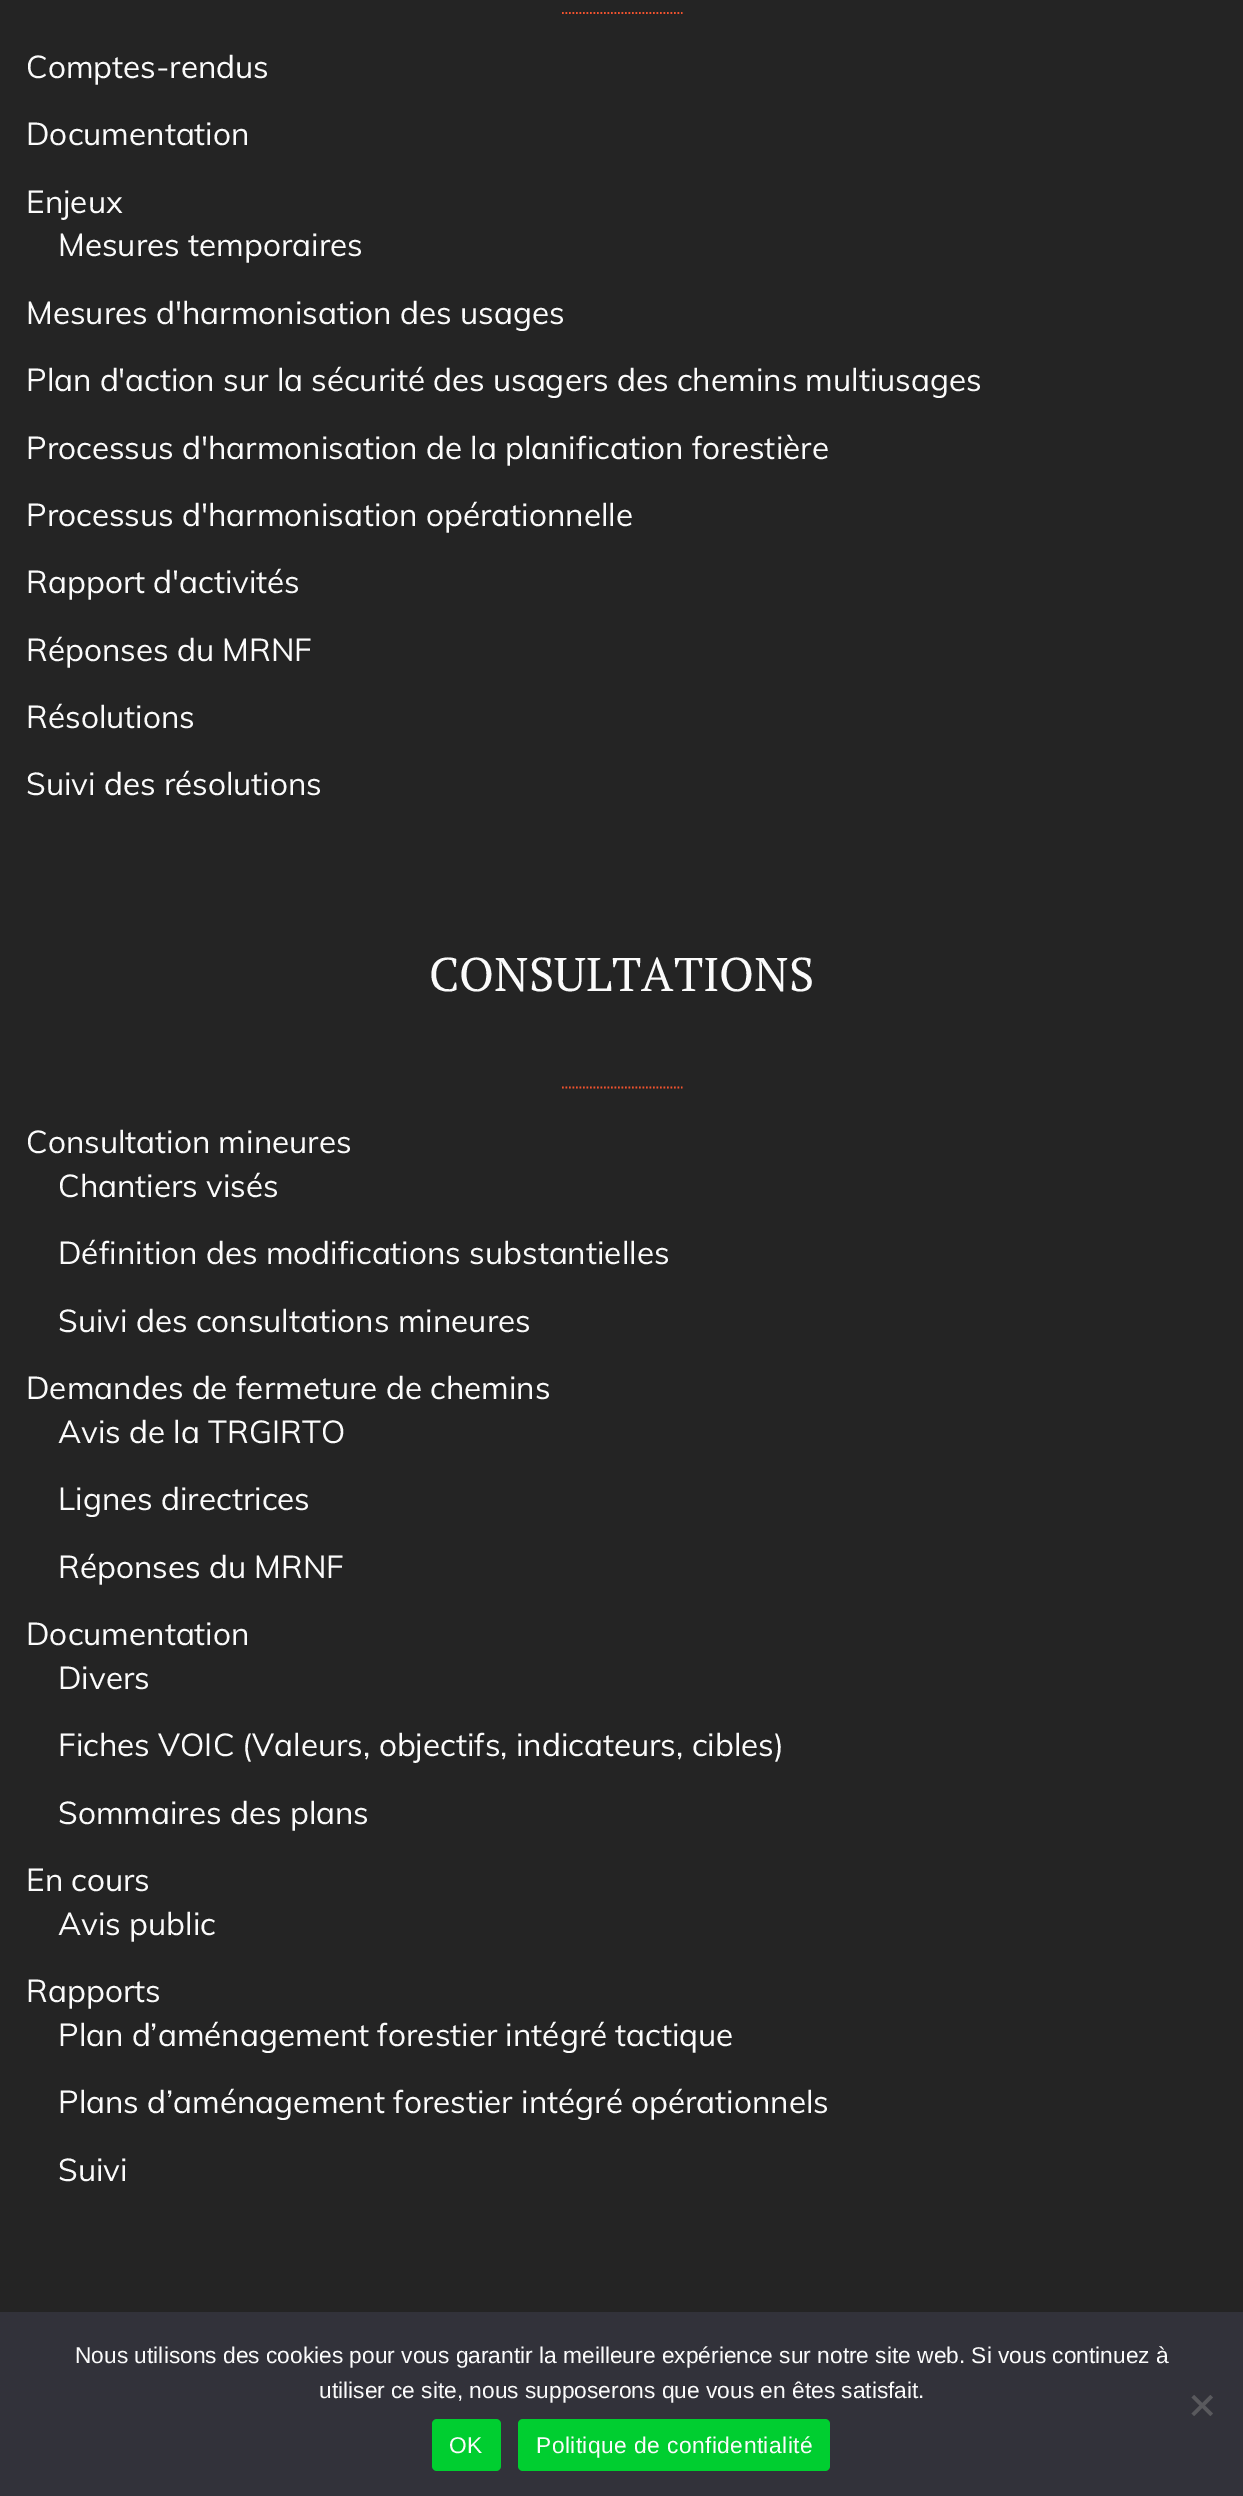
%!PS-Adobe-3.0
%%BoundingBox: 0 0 1243 2496
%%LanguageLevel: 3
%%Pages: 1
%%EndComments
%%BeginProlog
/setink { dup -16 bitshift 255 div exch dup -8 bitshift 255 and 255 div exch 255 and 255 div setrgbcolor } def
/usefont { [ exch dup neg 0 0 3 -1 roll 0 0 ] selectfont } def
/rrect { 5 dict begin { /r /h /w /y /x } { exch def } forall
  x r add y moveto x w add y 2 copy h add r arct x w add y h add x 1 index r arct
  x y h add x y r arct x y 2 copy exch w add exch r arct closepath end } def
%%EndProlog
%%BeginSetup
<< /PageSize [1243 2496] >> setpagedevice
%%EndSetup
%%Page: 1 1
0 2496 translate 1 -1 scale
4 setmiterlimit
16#242424 setink
0 0 1243 2496 rectfill
16#F2532F setink
1.8 setlinewidth
[1.75 1.75] 0 setdash
562 13 moveto 682.5 13 lineto stroke
/Muli-Regular 31.5 usefont
16#FBFBFB setink
[
    [(Comptes-rendus) 26 78]
    [(Documentation) 26 145]
    [(Enjeux) 26 213]
    [(Mesures temporaires) 58 256]
    [(Mesures d'harmonisation des usages) 26 324]
    [(Plan d'action sur la sécurité des usagers des chemins multiusages) 26 391]
    [(Processus d'harmonisation de la planification forestière) 26 459]
    [(Processus d'harmonisation opérationnelle) 26 526]
    [(Rapport d'activités) 26 593]
    [(Réponses du MRNF) 26 661]
    [(Résolutions) 26 728]
    [(Suivi des résolutions) 26 795]
] { aload pop moveto show } forall
/PTSerif-Regular 47.25 usefont
429 991 moveto (CONSULTATIONS) show
16#F2532F setink
562 1087.5 moveto 682.5 1087.5 lineto stroke
/Muli-Regular 31.5 usefont
16#FBFBFB setink
[
    [(Consultation mineures) 26 1153]
    [(Chantiers visés) 58 1197]
    [(Définition des modifications substantielles) 58 1264]
    [(Suivi des consultations mineures) 58 1332]
    [(Demandes de fermeture de chemins) 26 1399]
    [(Avis de la TRGIRTO) 58 1443]
    [(Lignes directrices) 58 1510]
    [(Réponses du MRNF) 58 1578]
    [(Documentation) 26 1645]
    [(Divers) 58 1689]
    [(Fiches VOIC \(Valeurs, objectifs, indicateurs, cibles\)) 58 1756]
    [(Sommaires des plans) 58 1824]
    [(En cours) 26 1891]
    [(Avis public) 58 1935]
    [(Rapports) 26 2002]
    [(Plan d’aménagement forestier intégré tactique) 58 2046]
    [(Plans d’aménagement forestier intégré opérationnels) 58 2113]
    [(Suivi) 58 2181]
] { aload pop moveto show } forall
16#32323A setink
0 2312 1243 184 rectfill
/LiberationSans-Regular 22.75 usefont
16#FBFBFB setink
75 2363 moveto (Nous utilisons des cookies pour vous garantir la meilleure expérience sur notre site web. Si vous continuez à) show
319 2398 moveto (utiliser ce site, nous supposerons que vous en êtes satisfait.) show
16#59595D setink
1210.5 2395 moveto 1213 2397.5 lineto 1194 2416 lineto 1191.5 2413.5 lineto closepath fill
1191.5 2397.5 moveto 1194 2395 lineto 1213 2413.5 lineto 1210.5 2416 lineto closepath fill
16#00CE30 setink
432 2419 69 52 5 rrect fill
16#FBFBFB setink
449 2453 moveto 0.45 0 (OK) ashow
16#00CE30 setink
518 2419 312 52 5 rrect fill
16#FBFBFB setink
536 2453 moveto 0.45 0 (Politique de confidentialité) ashow
showpage
%%EOF
